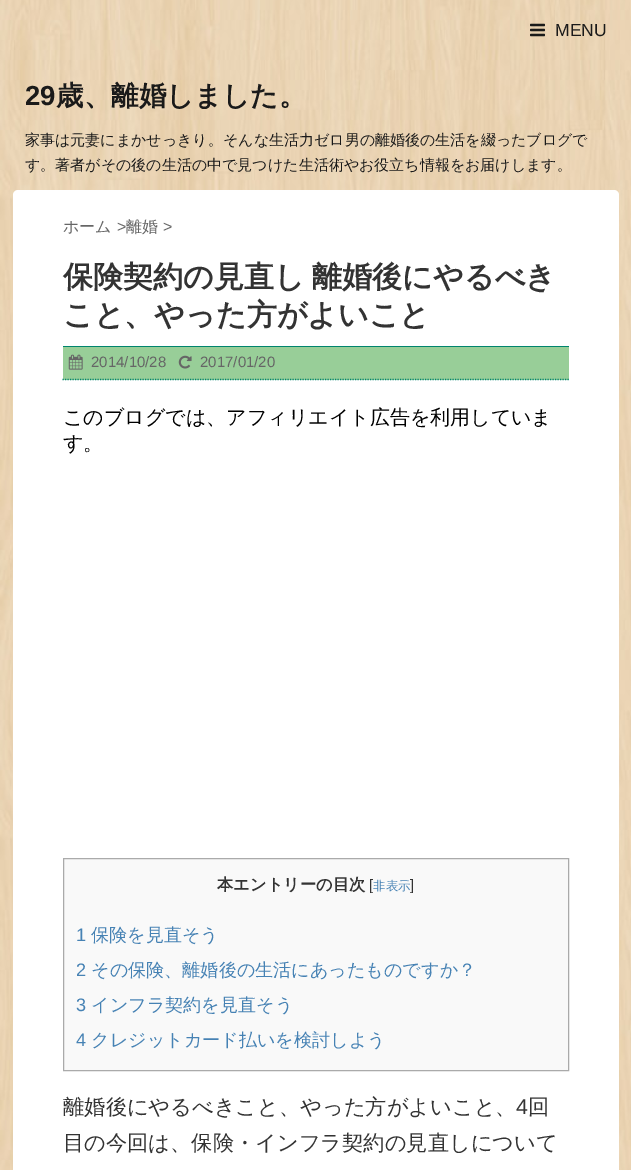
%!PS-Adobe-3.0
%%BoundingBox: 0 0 631 1170
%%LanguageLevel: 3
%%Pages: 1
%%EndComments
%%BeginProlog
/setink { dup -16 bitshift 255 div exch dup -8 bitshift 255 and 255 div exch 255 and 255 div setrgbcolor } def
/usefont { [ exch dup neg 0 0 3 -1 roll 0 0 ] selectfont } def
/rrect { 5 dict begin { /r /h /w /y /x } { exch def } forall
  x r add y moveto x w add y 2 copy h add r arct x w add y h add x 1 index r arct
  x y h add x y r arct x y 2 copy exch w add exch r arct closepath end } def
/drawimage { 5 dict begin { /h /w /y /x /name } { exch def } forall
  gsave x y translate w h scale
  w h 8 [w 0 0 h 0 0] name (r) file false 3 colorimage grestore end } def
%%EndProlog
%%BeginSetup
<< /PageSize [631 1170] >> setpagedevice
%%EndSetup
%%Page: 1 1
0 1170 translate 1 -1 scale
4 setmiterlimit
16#FFFFFF setink
0 0 631 1170 rectfill
(img1.raw) 0 0 631 1170 drawimage
(img2.raw) 530 23 15 14 drawimage
/LiberationSans-Regular 17.5 usefont
16#1A1A1A setink
555 36 moveto (MENU) show
/LiberationSans-Bold 27.5 usefont
25 105 moveto (29) show
/WenQuanYiZenHei-Bold 27.5 usefont
56 105 moveto (歳、離婚しました。) show
/WenQuanYiZenHei-Medium 15 usefont
25 145 moveto (家事は元妻にまかせっきり。そんな生活力ゼロ男の離婚後の生活を綴ったブログで) show
25 170 moveto (す。著者がその後の生活の中で見つけた生活術やお役立ち情報をお届けします。) show
16#FFFFFF setink
13 190 606 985 5 rrect fill
/WenQuanYiZenHei-Medium 16 usefont
16#666666 setink
63 232 moveto (ホーム) show
/LiberationSans-Regular 16 usefont
117 232 moveto (>) show
/WenQuanYiZenHei-Medium 16 usefont
126 232 moveto (離婚) show
/LiberationSans-Regular 16 usefont
163 232 moveto (>) show
/WenQuanYiZenHei-Bold 30 usefont
16#333333 setink
63 287 moveto -1 0 32 (保険契約の見直し 離婚後にやるべき) widthshow
63 325 moveto (こと、やった方がよいこと) show
16#98CE98 setink
63 347 506 33 rectfill
16#00846E setink
63 346 506 1 rectfill
1.2 setlinewidth
[1.25 1.25] 0 setdash
62.5 379.5 moveto 569 379.5 lineto stroke
(img3.raw) 68 354 15 16 drawimage
/LiberationSans-Regular 15 usefont
16#666666 setink
91 367 moveto (2014/10/28) show
(img4.raw) 178 355 14 14 drawimage
200 367 moveto (2017/01/20) show
/WenQuanYiZenHei-Medium 20 usefont
16#000000 setink
63 424 moveto (このブログでは、アフィリエイト広告を利用していま) show
63 450 moveto (す。) show
16#F9F9F9 setink
63.5 858.5 moveto 568.5 858.5 lineto 568.5 1070.5 lineto 63.5 1070.5 lineto closepath gsave fill grestore
16#AAAAAA setink
1 setlinewidth
[] 0 setdash
stroke
/WenQuanYiZenHei-Bold 16.25 usefont
16#333333 setink
217 890 moveto (本エントリーの目次) show
/LiberationSans-Regular 15 usefont
369 890 moveto ([) show
/WenQuanYiZenHei-Medium 12.5 usefont
16#4682B4 setink
373 890 moveto (非表示) show
/LiberationSans-Regular 15 usefont
16#333333 setink
410 890 moveto (]) show
/LiberationSans-Regular 18.1 usefont
16#4682B4 setink
76 941 moveto (1) show
/WenQuanYiZenHei-Medium 18.1 usefont
91 941 moveto (保険を見直そう) show
/LiberationSans-Regular 18.1 usefont
76 976 moveto (2) show
/WenQuanYiZenHei-Medium 18.1 usefont
91 976 moveto (その保険、離婚後の生活にあったものですか？) show
/LiberationSans-Regular 18.1 usefont
76 1011 moveto (3) show
/WenQuanYiZenHei-Medium 18.1 usefont
91 1011 moveto (インフラ契約を見直そう) show
/LiberationSans-Regular 18.1 usefont
76 1046 moveto (4) show
/WenQuanYiZenHei-Medium 18.1 usefont
91 1046 moveto (クレジットカード払いを検討しよう) show
/WenQuanYiZenHei-Medium 21.25 usefont
16#333333 setink
63 1114 moveto (離婚後にやるべきこと、やった方がよいこと、) show
/LiberationSans-Regular 21.25 usefont
516 1114 moveto (4) show
/WenQuanYiZenHei-Medium 21.25 usefont
528 1114 moveto (回) show
63 1150 moveto (目の今回は、保険・インフラ契約の見直しについて) show
showpage
%%EOF
